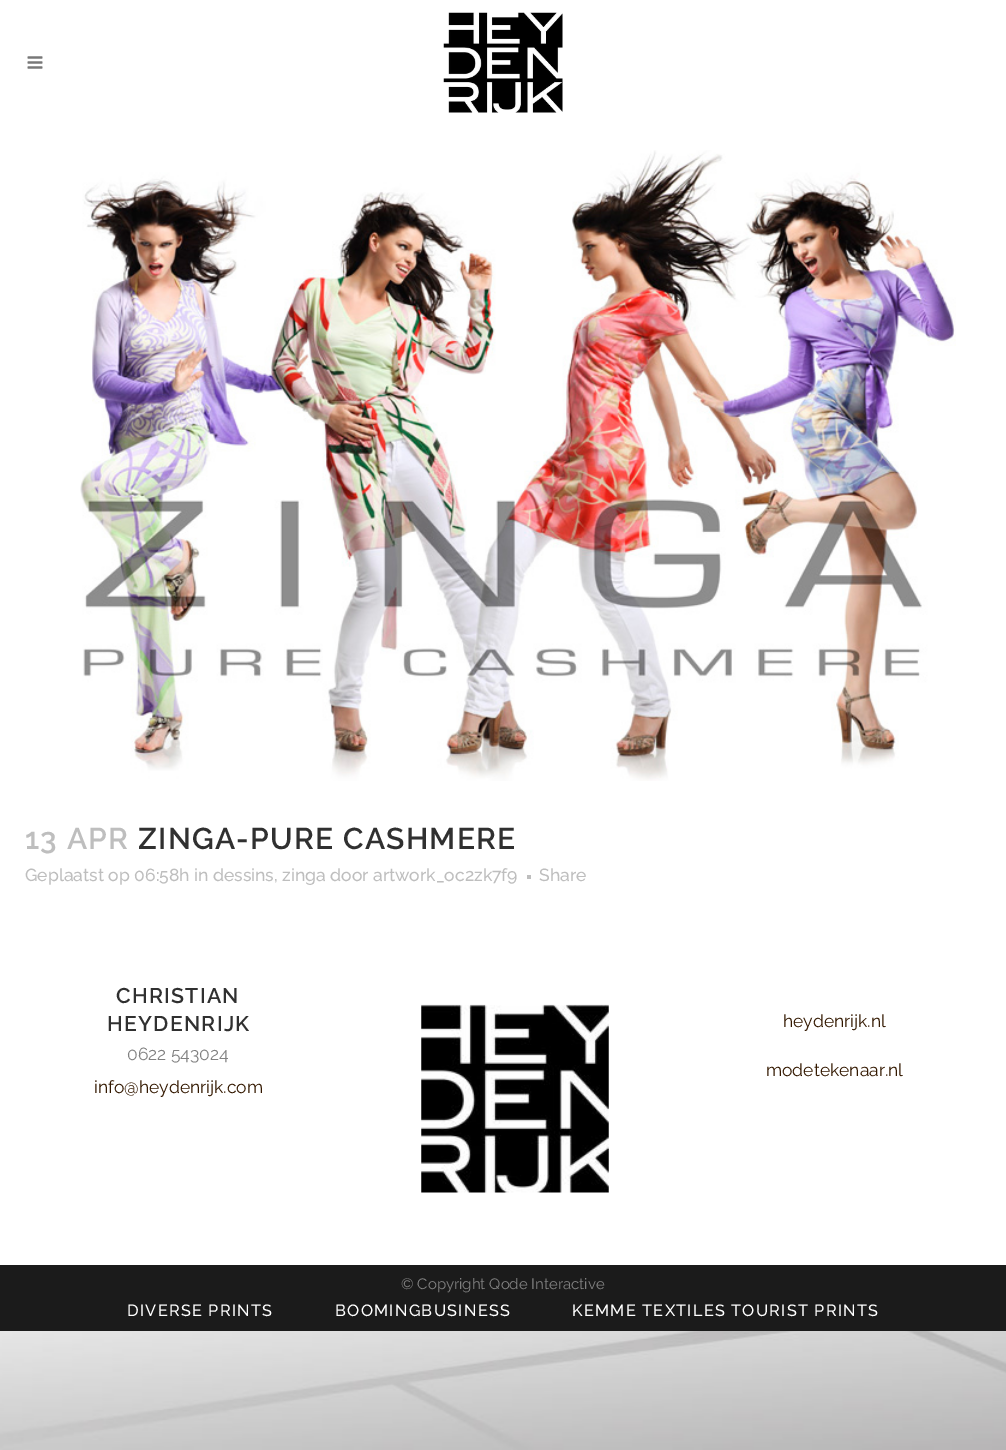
%!PS-Adobe-3.0
%%BoundingBox: 0 0 1006 1450
%%LanguageLevel: 3
%%Pages: 1
%%EndComments
%%BeginProlog
/setink { dup -16 bitshift 255 div exch dup -8 bitshift 255 and 255 div exch 255 and 255 div setrgbcolor } def
/usefont { [ exch dup neg 0 0 3 -1 roll 0 0 ] selectfont } def
/drawimage { 5 dict begin { /h /w /y /x /name } { exch def } forall
  gsave x y translate w h scale
  w h 8 [w 0 0 h 0 0] name (r) file false 3 colorimage grestore end } def
%%EndProlog
%%BeginSetup
<< /PageSize [1006 1450] >> setpagedevice
%%EndSetup
%%Page: 1 1
0 1450 translate 1 -1 scale
4 setmiterlimit
16#FFFFFF setink
0 0 1006 1450 rectfill
(img1.raw) 0 1331 1006 119 drawimage
(img2.raw) 27 56 16 13 drawimage
(img3.raw) 443 12 120 101 drawimage
(img4.raw) 80 150 876 631 drawimage
/Raleway-SemiBold 30 usefont
16#BEBEBE setink
25 849 moveto 1.25 0 (13 APR) ashow
16#303030 setink
138 849 moveto 1.25 0 (ZINGA-PURE CASHMERE) ashow
/Raleway-Medium 17.5 usefont
16#BEBEBE setink
25 881 moveto (Geplaatst op 06:58h in dessins, zinga door artwork_oc2zk7f9) show
527 875 4 4 rectfill
539 881 moveto (Share) show
/Raleway-SemiBold 21.25 usefont
16#303030 setink
116 1003 moveto 1.25 0 (CHRISTIAN) ashow
107 1031 moveto 1.25 0 (HEYDENRIJK) ashow
/Raleway-Regular 17.5 usefont
16#818181 setink
127 1060 moveto (0622 543024) show
16#331800 setink
94 1093 moveto (info@heydenrijk.com) show
(img5.raw) 421 1004 188 189 drawimage
783 1027 moveto (heydenrijk.nl) show
766 1076 moveto (modetekenaar.nl) show
16#1B1B1B setink
0 1265 1006 66 rectfill
/Raleway-Regular 15 usefont
16#818181 setink
401 1289 moveto (© Copyright Qode Interactive) show
/Raleway-Medium 16.25 usefont
16#FFFFFF setink
127 1316 moveto 1.25 0 (DIVERSE PRINTS) ashow
335 1316 moveto 1.25 0 (BOOMINGBUSINESS) ashow
572 1316 moveto 1.25 0 (KEMME TEXTILES TOURIST PRINTS) ashow
showpage
%%EOF
